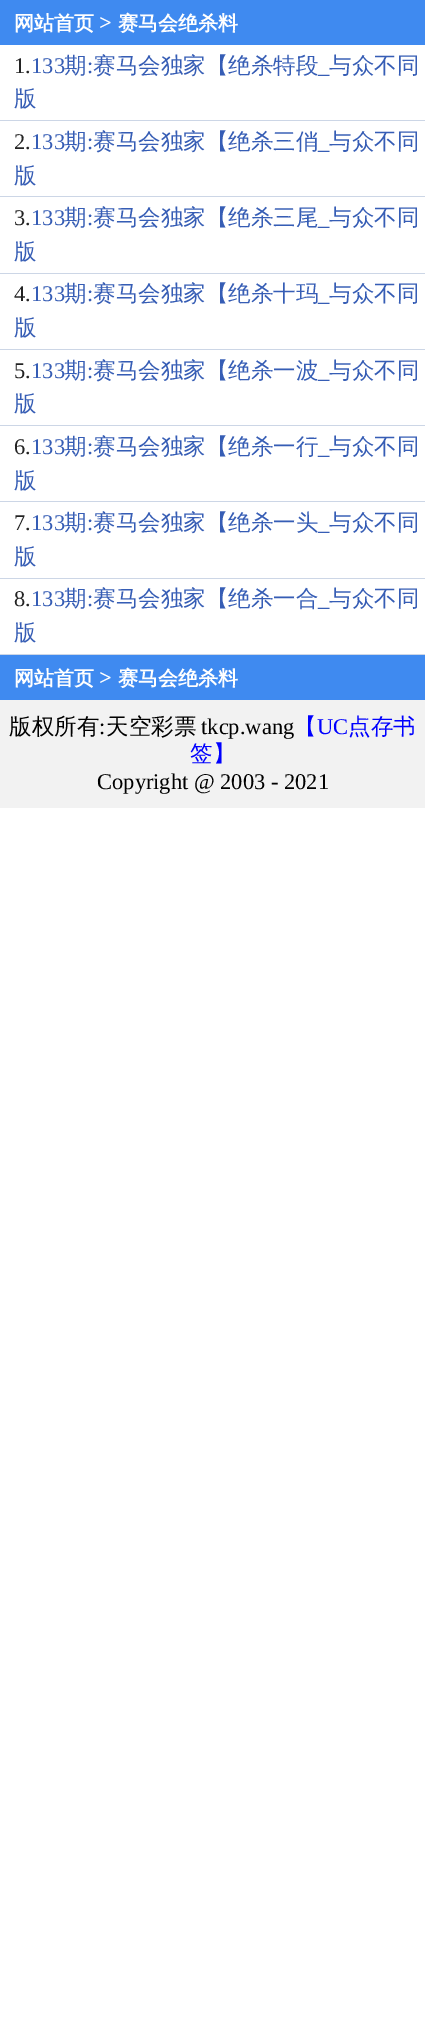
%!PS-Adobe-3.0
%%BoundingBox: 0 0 425 2024
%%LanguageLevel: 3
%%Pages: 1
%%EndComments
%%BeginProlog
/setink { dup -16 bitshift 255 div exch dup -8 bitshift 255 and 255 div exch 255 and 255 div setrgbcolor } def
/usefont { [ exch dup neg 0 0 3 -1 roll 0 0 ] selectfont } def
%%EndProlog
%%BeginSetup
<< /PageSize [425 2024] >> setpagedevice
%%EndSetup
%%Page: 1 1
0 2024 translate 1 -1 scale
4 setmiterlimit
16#FFFFFF setink
0 0 425 2024 rectfill
16#3F8AF0 setink
0 0 425 45 rectfill
/WenQuanYiZenHei-Bold 20 usefont
16#FFFFFF setink
14 30 moveto (网站首页) show
/LiberationSerif-Bold 22.5 usefont
99 30 moveto (>) show
/WenQuanYiZenHei-Bold 20 usefont
118 30 moveto (赛马会绝杀料) show
16#CCD6E6 setink
0 120 425 1 rectfill
/LiberationSerif-Regular 22.5 usefont
16#232323 setink
14 73 moveto (1.) show
16#365DB5 setink
31 73 moveto (133) show
/WenQuanYiZenHei-Medium 22.5 usefont
64 73 moveto (期) show
/LiberationSerif-Regular 22.5 usefont
87 73 moveto (:) show
/WenQuanYiZenHei-Medium 22.5 usefont
93 73 moveto (赛马会独家【绝杀特段) show
/LiberationSerif-Regular 22.5 usefont
318 73 moveto (_) show
/WenQuanYiZenHei-Medium 22.5 usefont
329 73 moveto (与众不同) show
14 106 moveto (版) show
16#CCD6E6 setink
0 196 425 1 rectfill
/LiberationSerif-Regular 22.5 usefont
16#232323 setink
14 149 moveto (2.) show
16#365DB5 setink
31 149 moveto (133) show
/WenQuanYiZenHei-Medium 22.5 usefont
64 149 moveto (期) show
/LiberationSerif-Regular 22.5 usefont
87 149 moveto (:) show
/WenQuanYiZenHei-Medium 22.5 usefont
93 149 moveto (赛马会独家【绝杀三俏) show
/LiberationSerif-Regular 22.5 usefont
318 149 moveto (_) show
/WenQuanYiZenHei-Medium 22.5 usefont
329 149 moveto (与众不同) show
14 183 moveto (版) show
16#CCD6E6 setink
0 273 425 1 rectfill
/LiberationSerif-Regular 22.5 usefont
16#232323 setink
14 225 moveto (3.) show
16#365DB5 setink
31 225 moveto (133) show
/WenQuanYiZenHei-Medium 22.5 usefont
64 225 moveto (期) show
/LiberationSerif-Regular 22.5 usefont
87 225 moveto (:) show
/WenQuanYiZenHei-Medium 22.5 usefont
93 225 moveto (赛马会独家【绝杀三尾) show
/LiberationSerif-Regular 22.5 usefont
318 225 moveto (_) show
/WenQuanYiZenHei-Medium 22.5 usefont
329 225 moveto (与众不同) show
14 259 moveto (版) show
16#CCD6E6 setink
0 349 425 1 rectfill
/LiberationSerif-Regular 22.5 usefont
16#232323 setink
14 301 moveto (4.) show
16#365DB5 setink
31 301 moveto (133) show
/WenQuanYiZenHei-Medium 22.5 usefont
64 301 moveto (期) show
/LiberationSerif-Regular 22.5 usefont
87 301 moveto (:) show
/WenQuanYiZenHei-Medium 22.5 usefont
93 301 moveto (赛马会独家【绝杀十玛) show
/LiberationSerif-Regular 22.5 usefont
318 301 moveto (_) show
/WenQuanYiZenHei-Medium 22.5 usefont
329 301 moveto (与众不同) show
14 335 moveto (版) show
16#CCD6E6 setink
0 425 425 1 rectfill
/LiberationSerif-Regular 22.5 usefont
16#232323 setink
14 378 moveto (5.) show
16#365DB5 setink
31 378 moveto (133) show
/WenQuanYiZenHei-Medium 22.5 usefont
64 378 moveto (期) show
/LiberationSerif-Regular 22.5 usefont
87 378 moveto (:) show
/WenQuanYiZenHei-Medium 22.5 usefont
93 378 moveto (赛马会独家【绝杀一波) show
/LiberationSerif-Regular 22.5 usefont
318 378 moveto (_) show
/WenQuanYiZenHei-Medium 22.5 usefont
329 378 moveto (与众不同) show
14 411 moveto (版) show
16#CCD6E6 setink
0 501 425 1 rectfill
/LiberationSerif-Regular 22.5 usefont
16#232323 setink
14 454 moveto (6.) show
16#365DB5 setink
31 454 moveto (133) show
/WenQuanYiZenHei-Medium 22.5 usefont
64 454 moveto (期) show
/LiberationSerif-Regular 22.5 usefont
87 454 moveto (:) show
/WenQuanYiZenHei-Medium 22.5 usefont
93 454 moveto (赛马会独家【绝杀一行) show
/LiberationSerif-Regular 22.5 usefont
318 454 moveto (_) show
/WenQuanYiZenHei-Medium 22.5 usefont
329 454 moveto (与众不同) show
14 488 moveto (版) show
16#CCD6E6 setink
0 578 425 1 rectfill
/LiberationSerif-Regular 22.5 usefont
16#232323 setink
14 530 moveto (7.) show
16#365DB5 setink
31 530 moveto (133) show
/WenQuanYiZenHei-Medium 22.5 usefont
64 530 moveto (期) show
/LiberationSerif-Regular 22.5 usefont
87 530 moveto (:) show
/WenQuanYiZenHei-Medium 22.5 usefont
93 530 moveto (赛马会独家【绝杀一头) show
/LiberationSerif-Regular 22.5 usefont
318 530 moveto (_) show
/WenQuanYiZenHei-Medium 22.5 usefont
329 530 moveto (与众不同) show
14 564 moveto (版) show
16#CCD6E6 setink
0 654 425 1 rectfill
/LiberationSerif-Regular 22.5 usefont
16#232323 setink
14 606 moveto (8.) show
16#365DB5 setink
31 606 moveto (133) show
/WenQuanYiZenHei-Medium 22.5 usefont
64 606 moveto (期) show
/LiberationSerif-Regular 22.5 usefont
87 606 moveto (:) show
/WenQuanYiZenHei-Medium 22.5 usefont
93 606 moveto (赛马会独家【绝杀一合) show
/LiberationSerif-Regular 22.5 usefont
318 606 moveto (_) show
/WenQuanYiZenHei-Medium 22.5 usefont
329 606 moveto (与众不同) show
14 640 moveto (版) show
16#3F8AF0 setink
0 655 425 45 rectfill
/WenQuanYiZenHei-Bold 20 usefont
16#FFFFFF setink
14 685 moveto (网站首页) show
/LiberationSerif-Bold 22.5 usefont
99 685 moveto (>) show
/WenQuanYiZenHei-Bold 20 usefont
118 685 moveto (赛马会绝杀料) show
16#F2F2F2 setink
0 700 425 108 rectfill
/WenQuanYiZenHei-Medium 22.5 usefont
16#000000 setink
9 734 moveto (版权所有) show
/LiberationSerif-Regular 22.5 usefont
99 734 moveto (:) show
/WenQuanYiZenHei-Medium 22.5 usefont
106 734 moveto (天空彩票) show
/LiberationSerif-Regular 22.5 usefont
201 734 moveto (tkcp.wang) show
/WenQuanYiZenHei-Medium 22.5 usefont
16#0000FF setink
294 734 moveto (【) show
/LiberationSerif-Regular 22.5 usefont
317 734 moveto (UC) show
/WenQuanYiZenHei-Medium 22.5 usefont
348 734 moveto (点存书) show
190 761 moveto (签】) show
/LiberationSerif-Regular 22.5 usefont
16#000000 setink
97 789 moveto (Copyright @ 2003 - 2021) show
showpage
%%EOF
